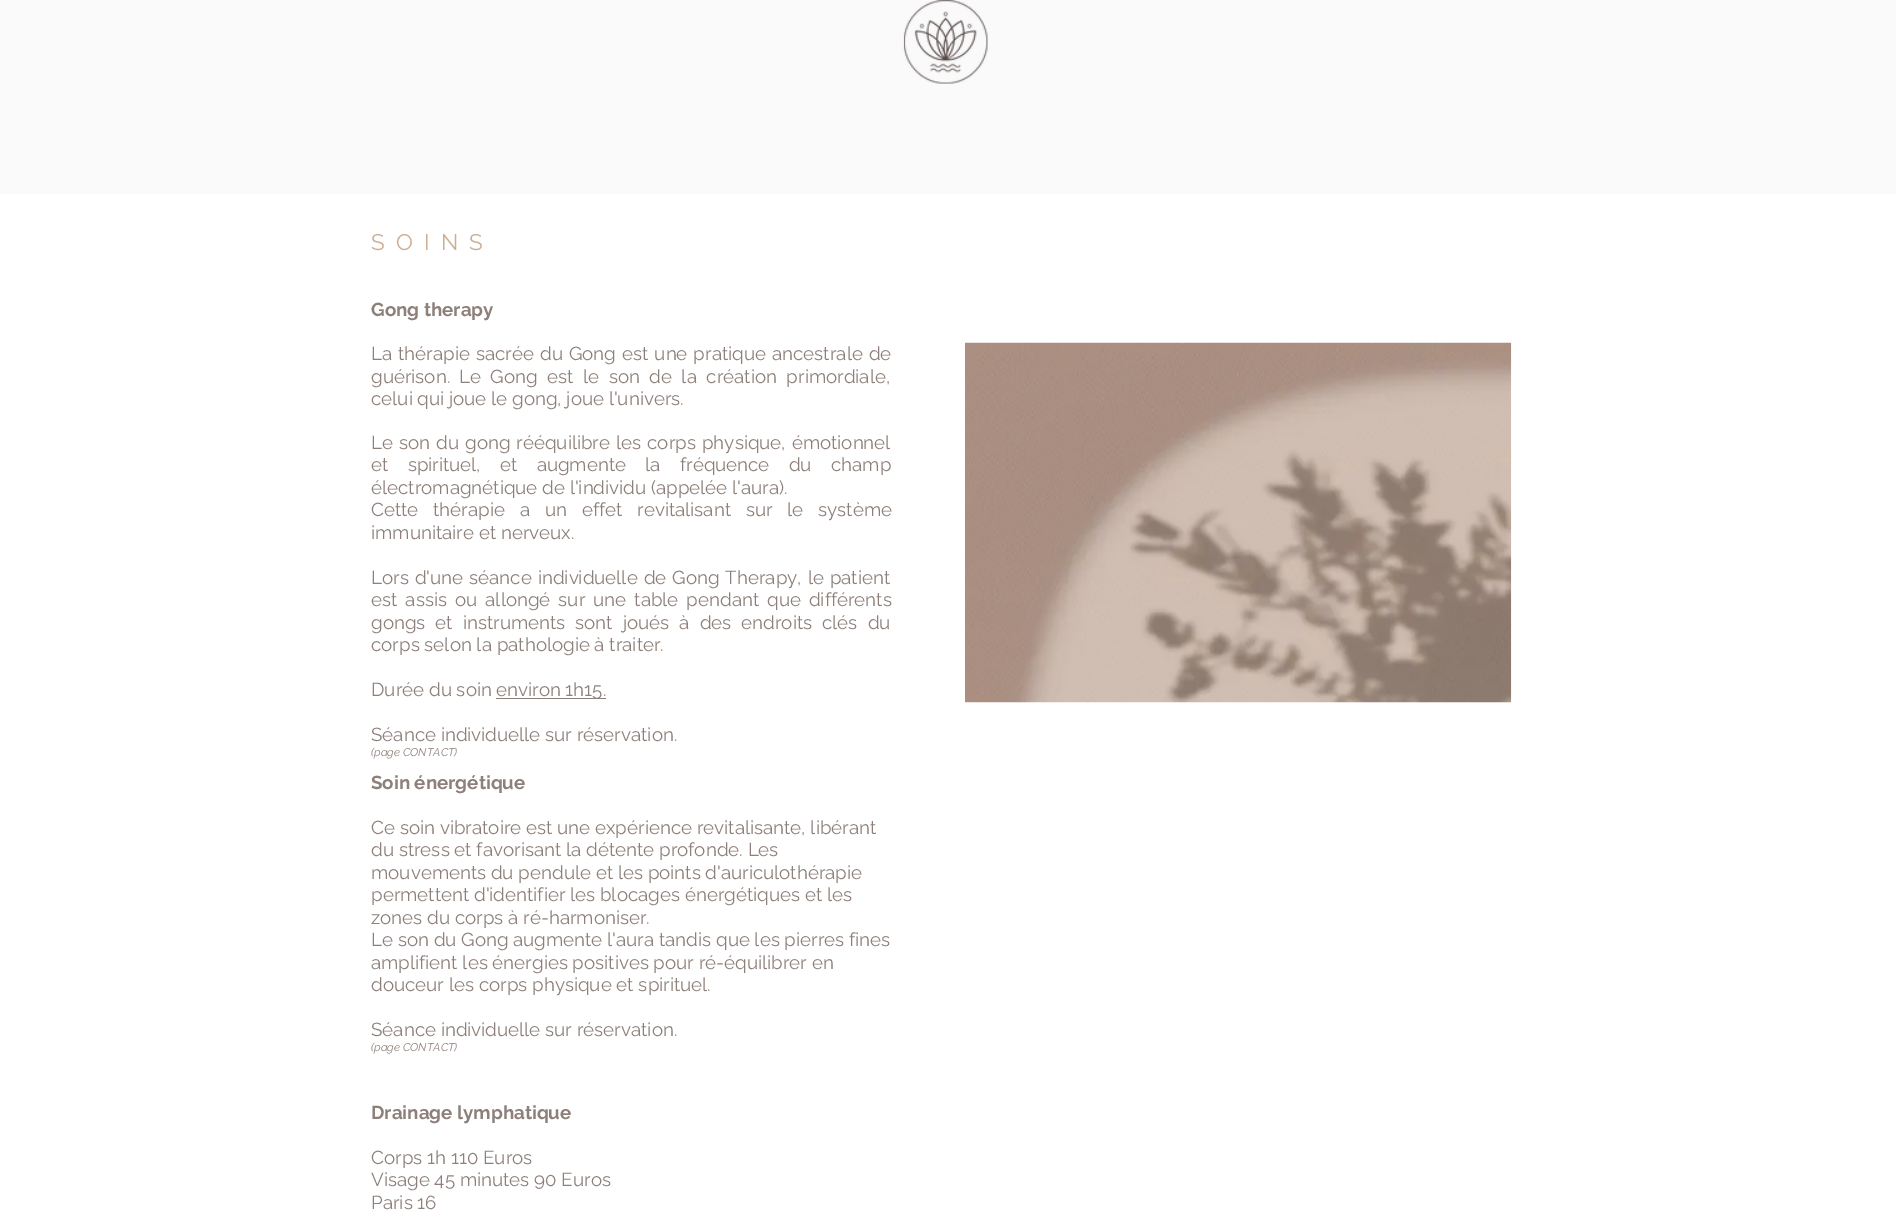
%!PS-Adobe-3.0
%%BoundingBox: 0 0 1896 1228
%%LanguageLevel: 3
%%Pages: 1
%%EndComments
%%BeginProlog
/setink { dup -16 bitshift 255 div exch dup -8 bitshift 255 and 255 div exch 255 and 255 div setrgbcolor } def
/usefont { [ exch dup neg 0 0 3 -1 roll 0 0 ] selectfont } def
/drawimage { 5 dict begin { /h /w /y /x /name } { exch def } forall
  gsave x y translate w h scale
  w h 8 [w 0 0 h 0 0] name (r) file false 3 colorimage grestore end } def
%%EndProlog
%%BeginSetup
<< /PageSize [1896 1228] >> setpagedevice
%%EndSetup
%%Page: 1 1
0 1228 translate 1 -1 scale
4 setmiterlimit
16#FFFFFF setink
0 0 1896 1228 rectfill
16#FAFAFA setink
0 0 1896 194 rectfill
(img1.raw) 903 0 85 84 drawimage
/Raleway-Regular 22.5 usefont
16#CCAE93 setink
371 250 moveto 11.25 0 (SOINS) ashow
/Raleway-Bold 18.75 usefont
16#8D7F79 setink
371 316 moveto (Gong therapy) show
/Raleway-Regular 18.75 usefont
371 360 moveto 1.25 0 32 (La thérapie sacrée du Gong est une pratique ancestrale de) widthshow
371 383 moveto (guérison.) show
459 383 moveto 4.75 0 32 (Le Gong est le son de la création primordiale,) widthshow
371 405 moveto (celui qui joue le gong, joue l'univers.) show
371 449 moveto 1.25 0 32 (Le son du gong rééquilibre les corps physique, émotionnel) widthshow
371 471 moveto 14.5 0 32 (et spirituel, et augmente la fréquence du champ) widthshow
371 494 moveto (électromagnétique de l'individu \(appelée l'aura\).) show
371 516 moveto 10 0 32 (Cette thérapie a un effet revitalisant sur le système) widthshow
371 539 moveto (immunitaire et nerveux.) show
371 584 moveto 1.25 0 32 (Lors d'une séance individuelle de Gong Therapy, le patient) widthshow
371 606 moveto 3.25 0 32 (est assis ou allongé sur une table pendant que différents) widthshow
371 629 moveto 5.25 0 32 (gongs et instruments sont joués à des endroits clés du) widthshow
371 651 moveto (corps selon la pathologie à traiter.) show
371 696 moveto (Durée du soin) show
496 698 110 1 rectfill
496 696 moveto (environ 1h15.) show
371 741 moveto (Séance individuelle sur réservation.) show
/Raleway-Italic 11.25 usefont
371 756 moveto (\(page CONTACT\)) show
/Raleway-Bold 18.75 usefont
371 789 moveto (Soin énergétique) show
/Raleway-Regular 18.75 usefont
[
    [(Ce soin vibratoire est une expérience revitalisante, libérant) 371 834]
    [(du stress et favorisant la détente profonde. Les) 371 856]
    [(mouvements du pendule et les points d'auriculothérapie) 371 879]
    [(permettent d'identifier les blocages énergétiques et les) 371 901]
    [(zones du corps à ré-harmoniser.) 371 924]
    [(Le son du Gong augmente l'aura tandis que les pierres fines) 371 946]
    [(amplifient les énergies positives pour ré-équilibrer en) 371 969]
    [(douceur les corps physique et spirituel.) 371 991]
    [(Séance individuelle sur réservation.) 371 1036]
] { aload pop moveto show } forall
/Raleway-Italic 11.25 usefont
371 1051 moveto (\(page CONTACT\)) show
/Raleway-Bold 18.75 usefont
371 1119 moveto (Drainage lymphatique) show
/Raleway-Regular 18.75 usefont
[
    [(Corps 1h 110 Euros) 371 1164]
    [(Visage 45 minutes 90 Euros) 371 1186]
    [(Paris 16) 371 1209]
] { aload pop moveto show } forall
(img2.raw) 965 342 547 361 drawimage
showpage
%%EOF
